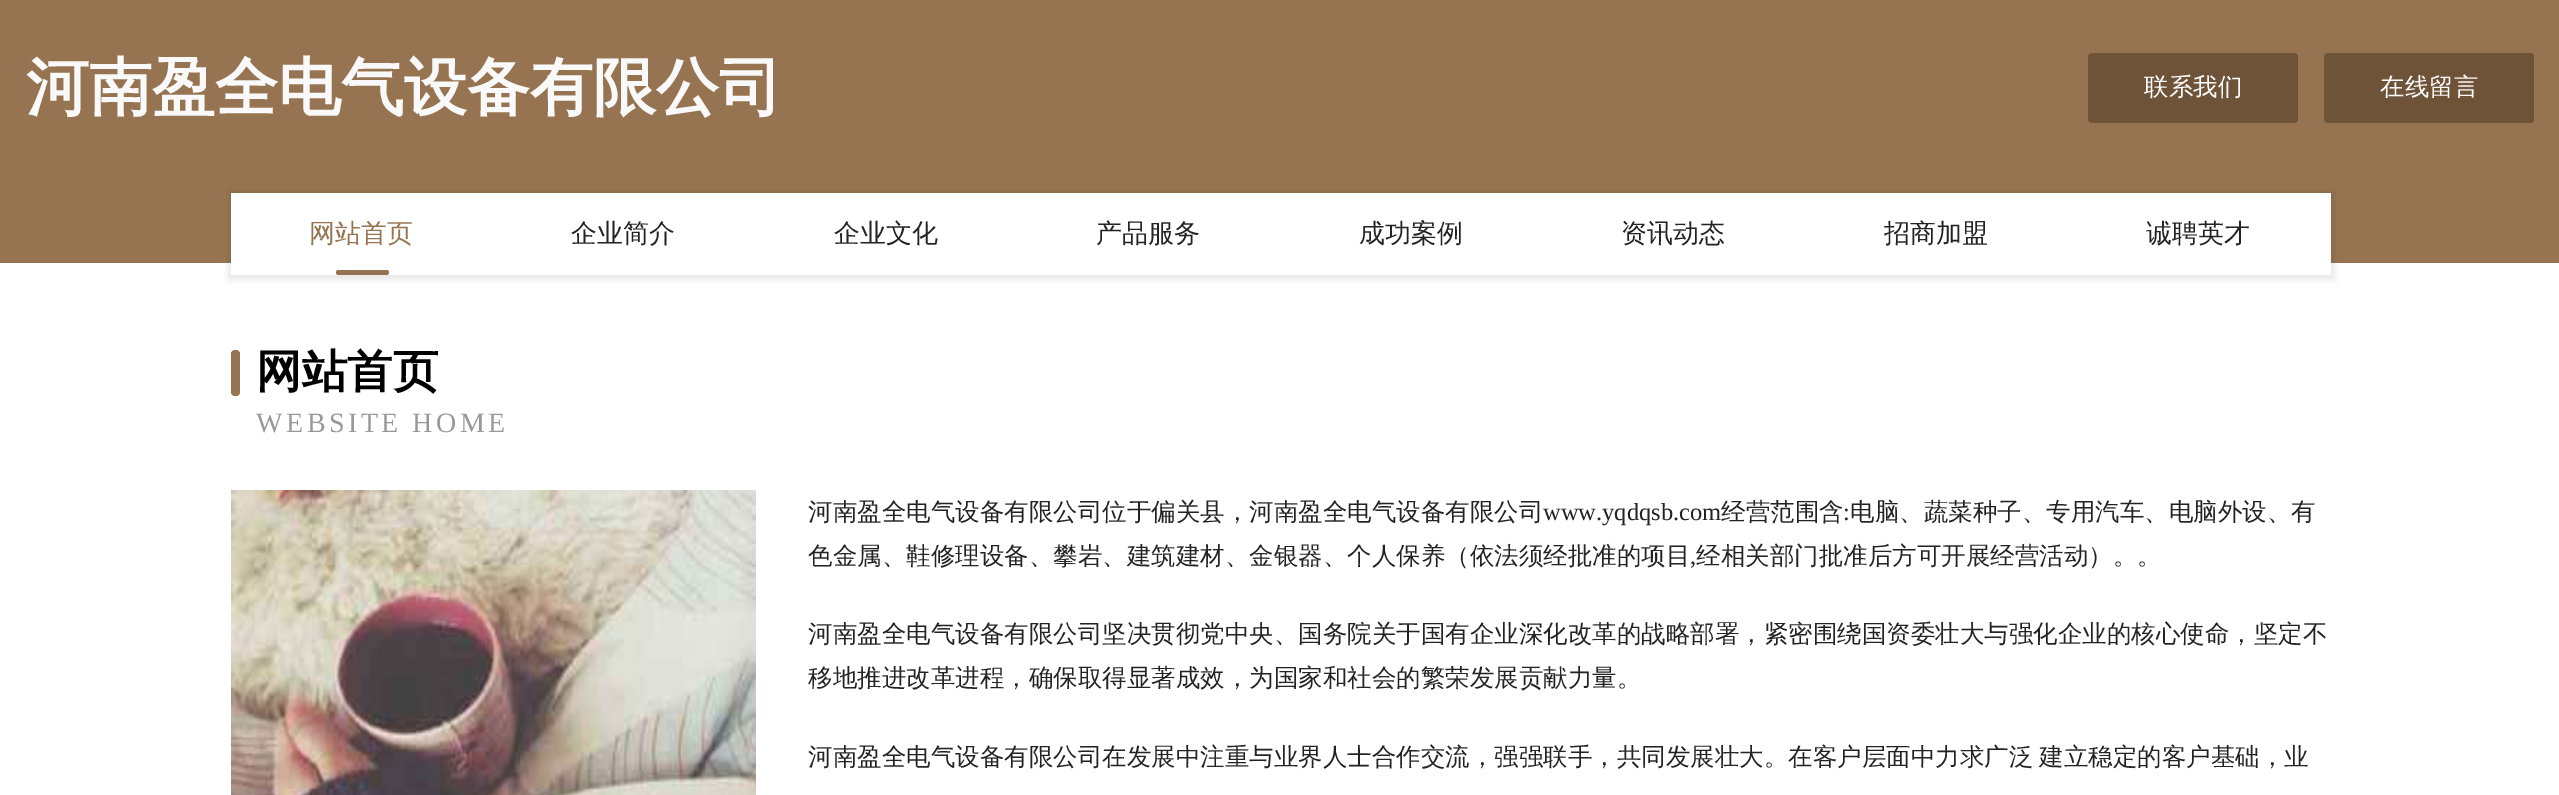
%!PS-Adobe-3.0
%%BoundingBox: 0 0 2559 795
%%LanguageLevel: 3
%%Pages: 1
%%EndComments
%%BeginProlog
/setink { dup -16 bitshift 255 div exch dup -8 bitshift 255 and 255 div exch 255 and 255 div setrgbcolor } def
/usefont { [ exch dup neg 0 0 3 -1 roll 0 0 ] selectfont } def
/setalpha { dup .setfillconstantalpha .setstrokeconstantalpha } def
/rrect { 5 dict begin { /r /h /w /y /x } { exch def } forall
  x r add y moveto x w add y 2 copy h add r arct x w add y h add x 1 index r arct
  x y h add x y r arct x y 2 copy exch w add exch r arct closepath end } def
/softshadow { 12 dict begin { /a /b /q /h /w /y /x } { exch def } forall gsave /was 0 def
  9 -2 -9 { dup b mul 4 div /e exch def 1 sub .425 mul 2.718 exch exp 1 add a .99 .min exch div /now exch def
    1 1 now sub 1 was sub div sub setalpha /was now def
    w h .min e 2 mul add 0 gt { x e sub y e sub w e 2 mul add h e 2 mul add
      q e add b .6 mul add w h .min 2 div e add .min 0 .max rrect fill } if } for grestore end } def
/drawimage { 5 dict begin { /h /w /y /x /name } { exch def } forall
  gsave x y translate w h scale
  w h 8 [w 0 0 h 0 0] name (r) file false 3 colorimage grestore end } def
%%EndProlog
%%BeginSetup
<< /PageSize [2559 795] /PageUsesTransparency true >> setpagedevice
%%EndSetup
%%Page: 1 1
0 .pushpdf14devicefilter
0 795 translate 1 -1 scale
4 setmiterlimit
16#FFFFFF setink
0 0 2559 795 rectfill
16#977451 setink
0 0 2559 263 rectfill
/WenQuanYiZenHei-Bold 63 usefont
16#F9F9F9 setink
26 109 moveto (河南盈全电气设备有限公司) show
16#6F5338 setink
2088 53 210 70 4 rrect fill
/WenQuanYiZenHei-Medium 24.5 usefont
16#FFFFFF setink
2144 95 moveto (联系我们) show
16#6F5338 setink
2324 53 210 70 4 rrect fill
16#FFFFFF setink
2380 95 moveto (在线留言) show
16#000000 setink
228 191 2107 89 0 2.5 0.08 softshadow
16#FFFFFF setink
231 193 2100 82 rectfill
/WenQuanYiZenHei-Medium 26 usefont
16#977451 setink
309 242 moveto (网站首页) show
336 270 53 5 2.5 rrect fill
16#232323 setink
[
    [(企业简介) 571 242]
    [(企业文化) 834 242]
    [(产品服务) 1096 242]
    [(成功案例) 1359 242]
    [(资讯动态) 1621 242]
    [(招商加盟) 1884 242]
    [(诚聘英才) 2146 242]
] { aload pop moveto show } forall
16#977451 setink
231 350 9 46 4 rrect fill
/WenQuanYiZenHei-Bold 45.5 usefont
16#000000 setink
256 387 moveto (网站首页) show
/LiberationSerif-Regular 28 usefont
16#989898 setink
256 432 moveto 3.5 0 (WEBSITE HOME) ashow
(img1.raw) 231 490 525 305 drawimage
/WenQuanYiZenHei-Medium 24.5 usefont
16#232323 setink
808 520 moveto (河南盈全电气设备有限公司位于偏关县，河南盈全电气设备有限公司) show
/LiberationSerif-Regular 24.5 usefont
1543 520 moveto (www.yqdqsb.com) show
/WenQuanYiZenHei-Medium 24.5 usefont
1721 520 moveto (经营范围含) show
/LiberationSerif-Regular 24.5 usefont
1843 520 moveto (:) show
/WenQuanYiZenHei-Medium 24.5 usefont
1850 520 moveto (电脑、蔬菜种子、专用汽车、电脑外设、有) show
808 564 moveto (色金属、鞋修理设备、攀岩、建筑建材、金银器、个人保养（依法须经批准的项目) show
/LiberationSerif-Regular 24.5 usefont
1690 564 moveto (,) show
/WenQuanYiZenHei-Medium 24.5 usefont
[
    [(经相关部门批准后方可开展经营活动）。。) 1696 564]
    [(河南盈全电气设备有限公司坚决贯彻党中央、国务院关于国有企业深化改革的战略部署，紧密围绕国资委壮大与强化企业的核心使命，坚定不) 808 642]
    [(移地推进改革进程，确保取得显著成效，为国家和社会的繁荣发展贡献力量。) 808 686]
] { aload pop moveto show } forall
808 765 moveto -1 0 32 (河南盈全电气设备有限公司在发展中注重与业界人士合作交流，强强联手，共同发展壮大。在客户层面中力求广泛 建立稳定的客户基础，业) widthshow
.poppdf14devicefilter showpage
%%EOF
